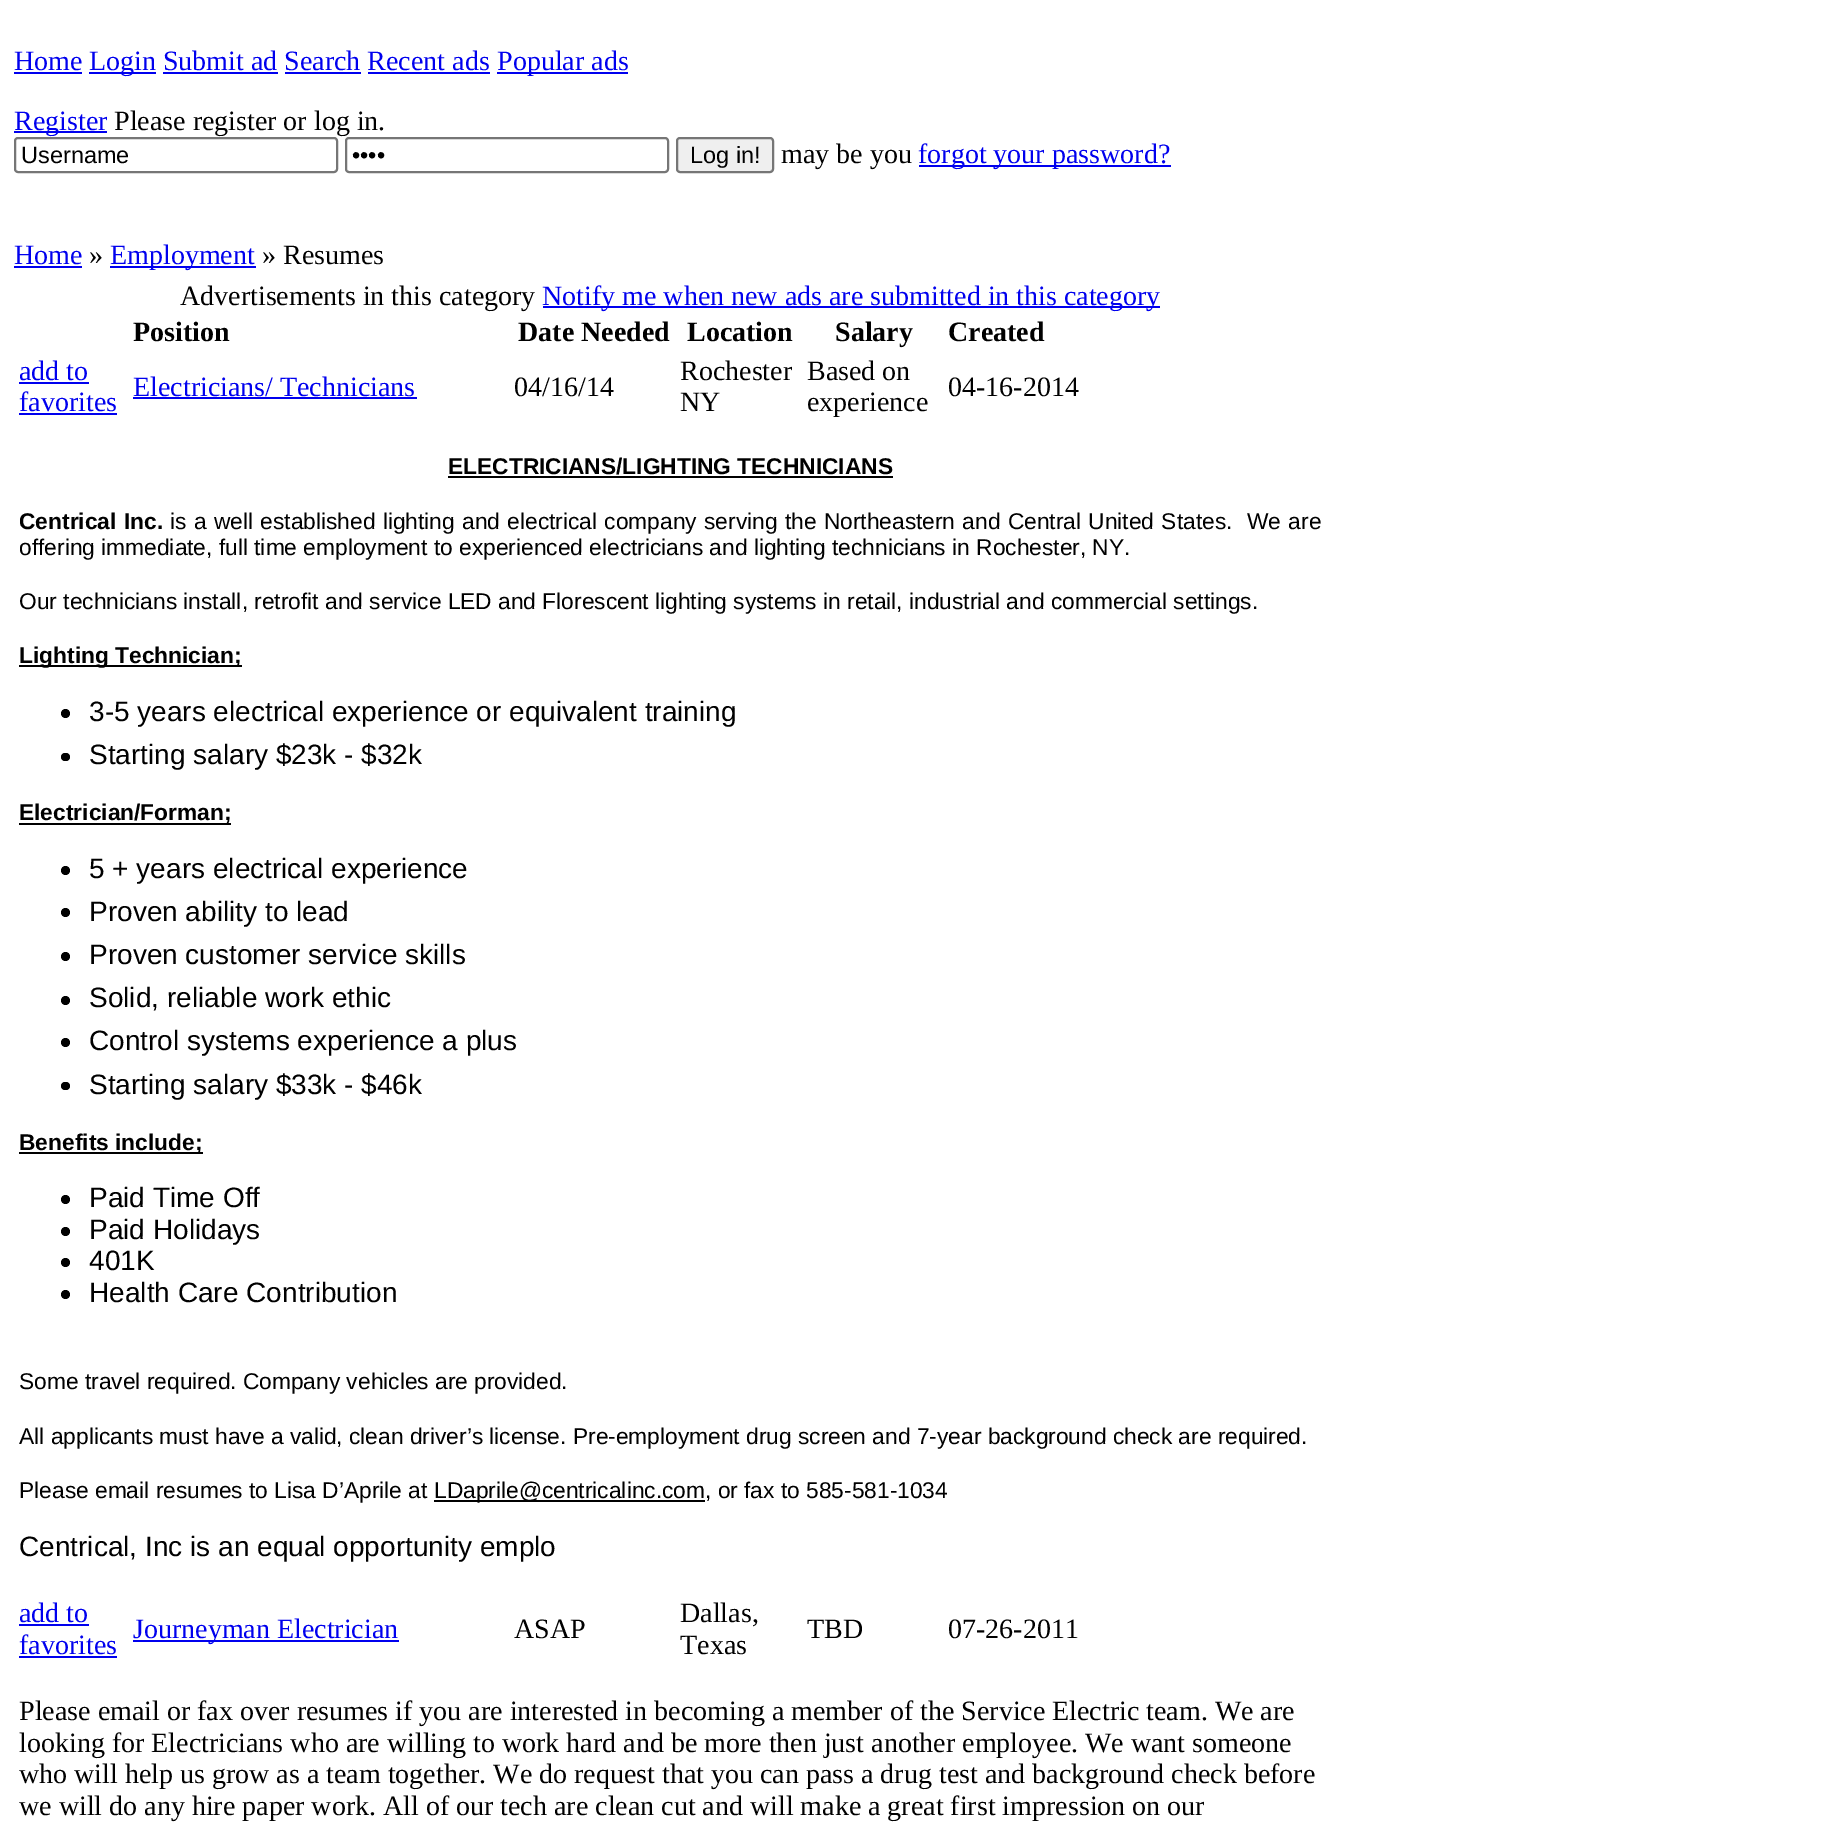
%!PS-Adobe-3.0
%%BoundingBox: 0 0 1847 1834
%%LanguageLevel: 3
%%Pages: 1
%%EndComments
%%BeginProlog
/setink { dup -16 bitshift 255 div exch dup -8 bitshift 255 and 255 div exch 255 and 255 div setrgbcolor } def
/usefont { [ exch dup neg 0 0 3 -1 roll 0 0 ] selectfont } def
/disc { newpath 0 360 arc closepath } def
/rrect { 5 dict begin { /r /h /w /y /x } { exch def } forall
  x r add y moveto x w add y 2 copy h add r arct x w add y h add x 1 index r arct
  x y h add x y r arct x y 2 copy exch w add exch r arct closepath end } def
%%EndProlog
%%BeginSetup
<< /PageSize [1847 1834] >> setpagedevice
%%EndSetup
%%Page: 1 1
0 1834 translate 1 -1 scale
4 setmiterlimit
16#FFFFFF setink
0 0 1847 1834 rectfill
/LiberationSerif-Regular 28 usefont
16#0000EE setink
14 70 moveto (Home) show
14 72 68 2 rectfill
89 72 67 2 rectfill
89 70 moveto (Login Submit ad Search Recent ads) show
497 72 131 2 rectfill
497 70 moveto (Popular ads) show
[
    [163 72 115 2 16#0000EE]
    [285 72 76 2 16#0000EE]
    [368 72 122 2 16#0000EE]
    [14 131 93 2 16#0000EE]
] { aload pop setink rectfill } forall
14 130 moveto (Register) show
16#000000 setink
114 130 moveto (Please register or log in.) show
16#767676 setink
2 setlinewidth
15 138 322 34 3 rrect stroke
/LiberationSans-Regular 23.5 usefont
16#000000 setink
21 163 moveto (Username) show
16#767676 setink
346 138 322 34 3 rrect stroke
16#000000 setink
352 163 moveto (••••) show
16#EFEFEF setink
677 138 96 34 3 rrect gsave fill grestore
16#767676 setink
stroke
16#000000 setink
690 163 moveto (Log in!) show
/LiberationSerif-Regular 28 usefont
781 163 moveto (may be you) show
16#0000EE setink
919 165 252 2 rectfill
918 163 moveto (forgot your password?) show
14 264 moveto (Home) show
14 266 68 2 rectfill
16#000000 setink
89 264 moveto (») show
16#0000EE setink
110 266 146 2 rectfill
110 264 moveto (Employment) show
16#000000 setink
262 264 moveto (» Resumes) show
180 305 moveto (Advertisements in this category) show
16#0000EE setink
543 306 617 2 rectfill
542 305 moveto (Notify me when new ads are submitted in this category) show
/LiberationSerif-Bold 28 usefont
16#000000 setink
[
    [(Position) 133 341]
    [(Date Needed) 518 341]
    [(Location) 687 341]
    [(Salary) 835 341]
    [(Created) 948 341]
] { aload pop moveto show } forall
/LiberationSerif-Regular 28 usefont
16#0000EE setink
19 380 moveto (add to) show
19 382 70 2 rectfill
19 411 moveto (favorites) show
19 413 98 2 rectfill
133 396 moveto (Electricians/ Technicians) show
133 397 284 2 rectfill
16#000000 setink
[
    [(04/16/14) 514 396]
    [(Rochester) 680 380]
    [(NY) 680 411]
    [(Based on) 807 380]
    [(experience) 807 411]
    [(04-16-2014) 948 396]
] { aload pop moveto show } forall
/LiberationSans-Bold 22.75 usefont
448 474 moveto (ELECTRICIANS/LIGHTING TECHNICIANS) show
448 476 445 2 rectfill
19 529 moveto 1 0 32 (Centrical Inc.) widthshow
/LiberationSans-Regular 22.75 usefont
170 529 moveto 1 0 32 (is a well established lighting and electrical company serving the Northeastern and Central United States.) widthshow
1247 529 moveto 1 0 32 (We are) widthshow
19 555 moveto (offering immediate, full time employment to experienced electricians and lighting technicians in Rochester, NY.) show
19 609 moveto (Our technicians install, retrofit and service LED and Florescent lighting systems in retail, industrial and commercial settings.) show
19 665 223 2 rectfill
/LiberationSans-Bold 22.75 usefont
19 663 moveto (Lighting Technician;) show
65.5 713.5 4.5 disc fill
/LiberationSans-Regular 28 usefont
89 721 moveto (3-5 years electrical experience or equivalent training) show
61 753 9 8 4 rrect fill
89 764 moveto (Starting salary $23k - $32k) show
19 823 212 2 rectfill
/LiberationSans-Bold 22.75 usefont
19 820 moveto (Electrician/Forman;) show
65.5 870.5 4.5 disc fill
/LiberationSans-Regular 28 usefont
89 878 moveto (5 + years electrical experience) show
65.5 912.5 4.5 disc fill
89 921 moveto (Proven ability to lead) show
65.5 956.5 4.5 disc fill
89 964 moveto (Proven customer service skills) show
65.5 1000.5 4.5 disc fill
89 1007 moveto (Solid, reliable work ethic) show
65.5 1042.5 4.5 disc fill
89 1050 moveto (Control systems experience a plus) show
61 1082 9 8 4 rrect fill
89 1094 moveto (Starting salary $33k - $46k) show
19 1152 184 2 rectfill
/LiberationSans-Bold 22.75 usefont
19 1150 moveto (Benefits include;) show
65.5 1199.5 4.5 disc fill
/LiberationSans-Regular 28 usefont
89 1207 moveto (Paid Time Off) show
65.5 1231.5 4.5 disc fill
89 1239 moveto (Paid Holidays) show
65.5 1262.5 4.5 disc fill
89 1270 moveto (401K) show
65.5 1294.5 4.5 disc fill
89 1302 moveto (Health Care Contribution) show
/LiberationSans-Regular 22.75 usefont
[
    [(Some travel required. Company vehicles are provided.) 19 1389]
    [(All applicants must have a valid, clean driver’s license. Pre-employment drug screen and 7-year background check are required.) 19 1444]
    [(Please email resumes to Lisa D’Aprile at) 19 1498]
] { aload pop moveto show } forall
434 1500 271 2 rectfill
434 1498 moveto (LDaprile@centricalinc.com, or fax to 585-581-1034) show
/LiberationSans-Regular 28 usefont
19 1556 moveto (Centrical, Inc is an equal opportunity emplo) show
/LiberationSerif-Regular 28 usefont
16#0000EE setink
19 1622 moveto (add to) show
19 1624 70 2 rectfill
19 1654 moveto (favorites) show
19 1656 98 2 rectfill
133 1640 266 2 rectfill
133 1638 moveto (Journeyman Electrician) show
16#000000 setink
[
    [(ASAP) 514 1638]
    [(Dallas,) 680 1622]
    [(Texas) 680 1654]
    [(TBD) 807 1638]
    [(07-26-2011) 948 1638]
    [(Please email or fax over resumes if you are interested in becoming a member of the Service Electric team. We are) 19 1720]
    [(looking for Electricians who are willing to work hard and be more then just another employee. We want someone) 19 1752]
    [(who will help us grow as a team together. We do request that you can pass a drug test and background check before) 19 1783]
    [(we will do any hire paper work. All of our tech are clean cut and will make a great first impression on our) 19 1815]
] { aload pop moveto show } forall
showpage
%%EOF
